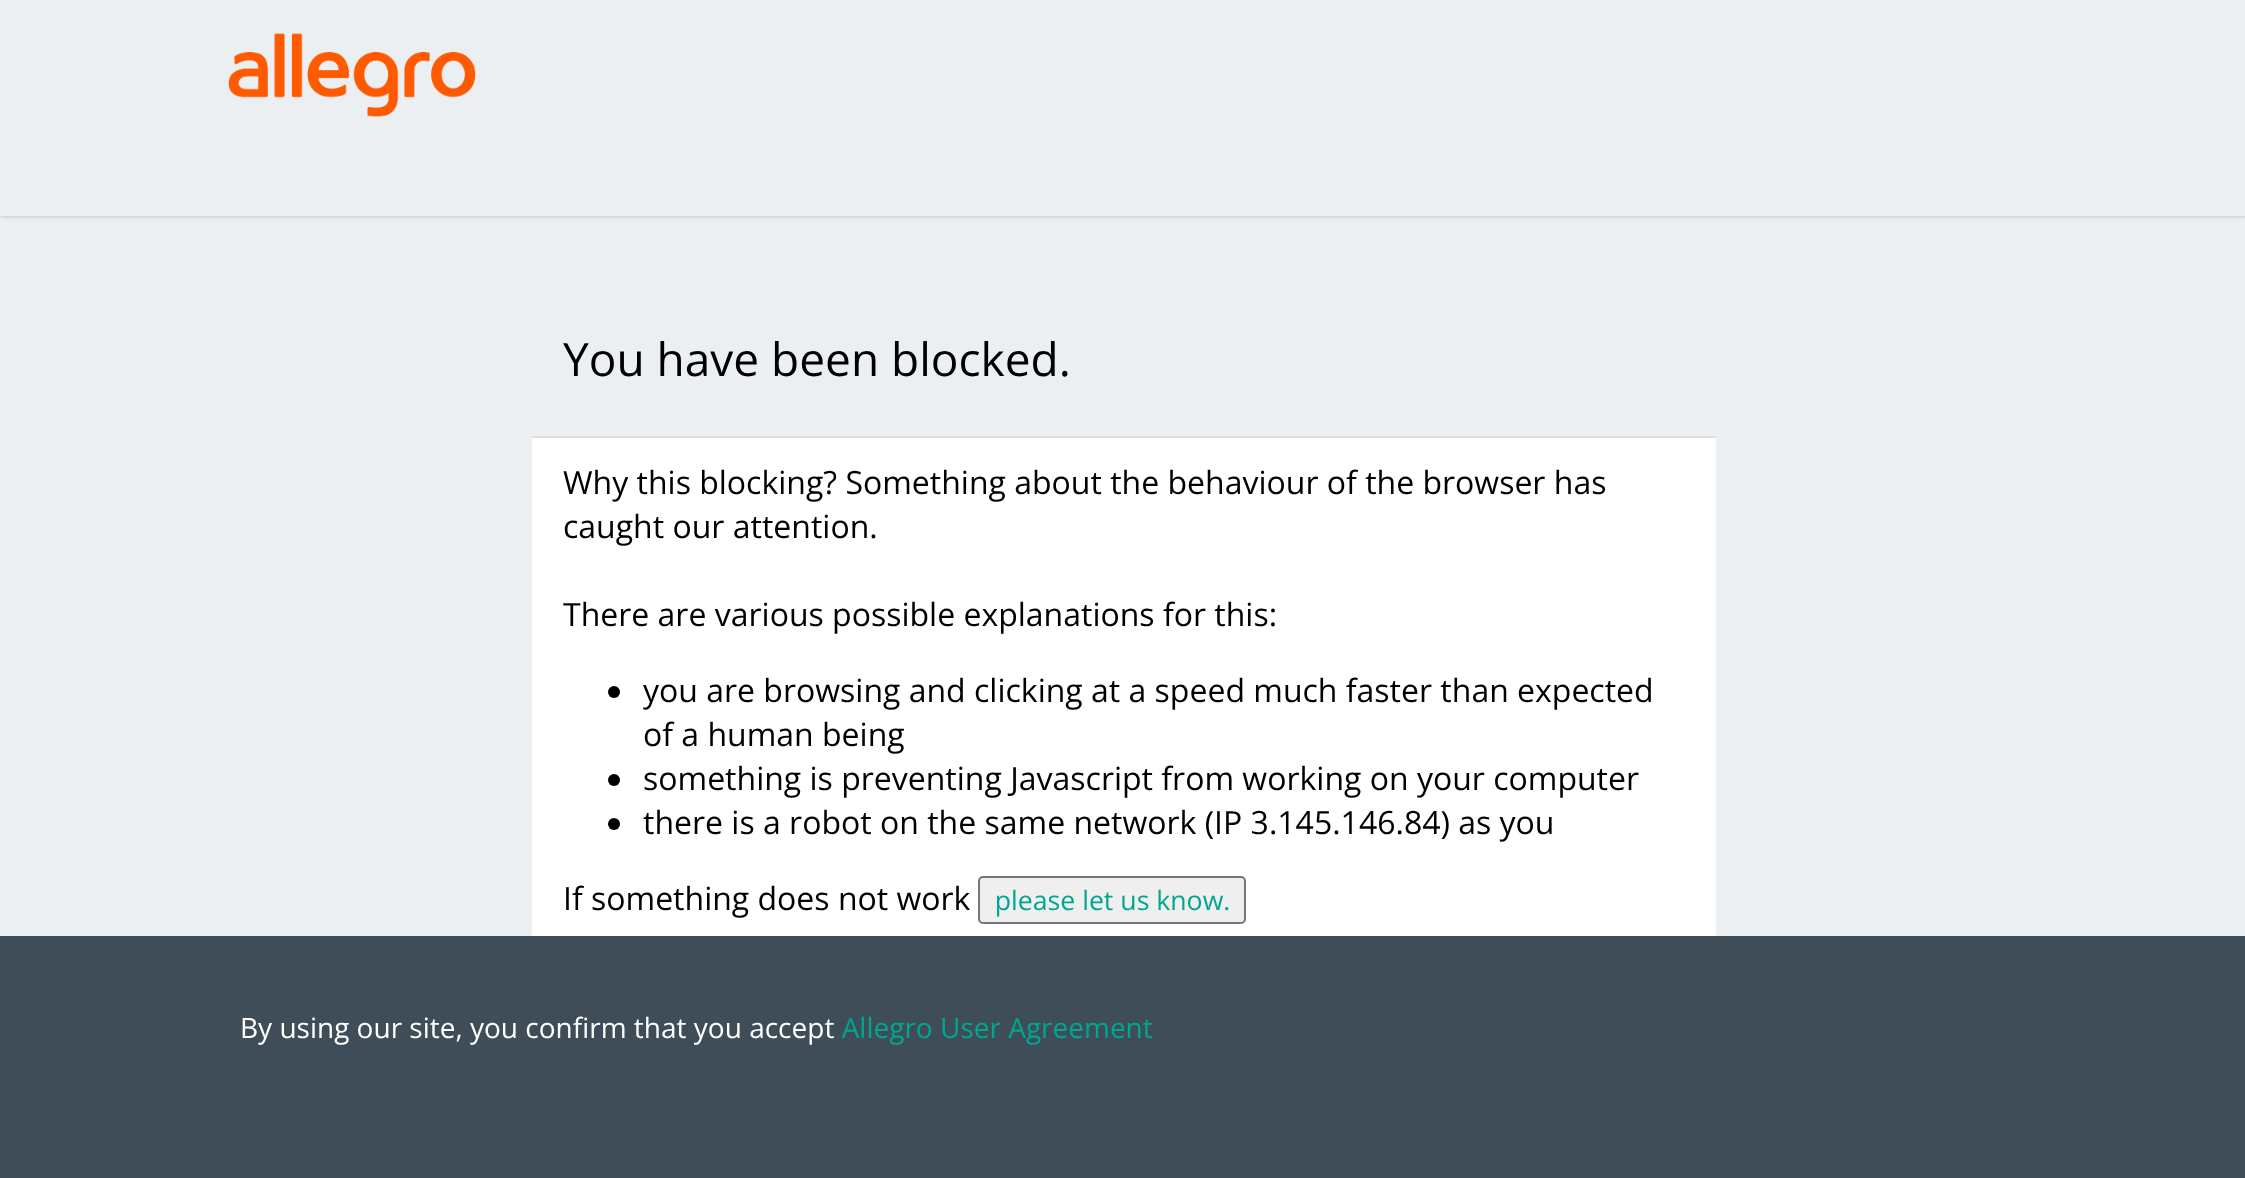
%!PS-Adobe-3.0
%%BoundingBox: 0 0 2245 1178
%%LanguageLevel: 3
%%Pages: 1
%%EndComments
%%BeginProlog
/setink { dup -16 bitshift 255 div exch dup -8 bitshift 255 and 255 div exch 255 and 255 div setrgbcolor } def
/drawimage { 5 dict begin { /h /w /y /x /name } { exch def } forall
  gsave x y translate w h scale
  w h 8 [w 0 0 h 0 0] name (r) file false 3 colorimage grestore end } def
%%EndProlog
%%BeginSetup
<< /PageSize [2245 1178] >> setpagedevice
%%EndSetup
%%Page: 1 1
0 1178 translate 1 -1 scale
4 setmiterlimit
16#FFFFFF setink
0 0 2245 1178 rectfill
(img1.raw) 0 0 2245 1178 drawimage
showpage
%%EOF
